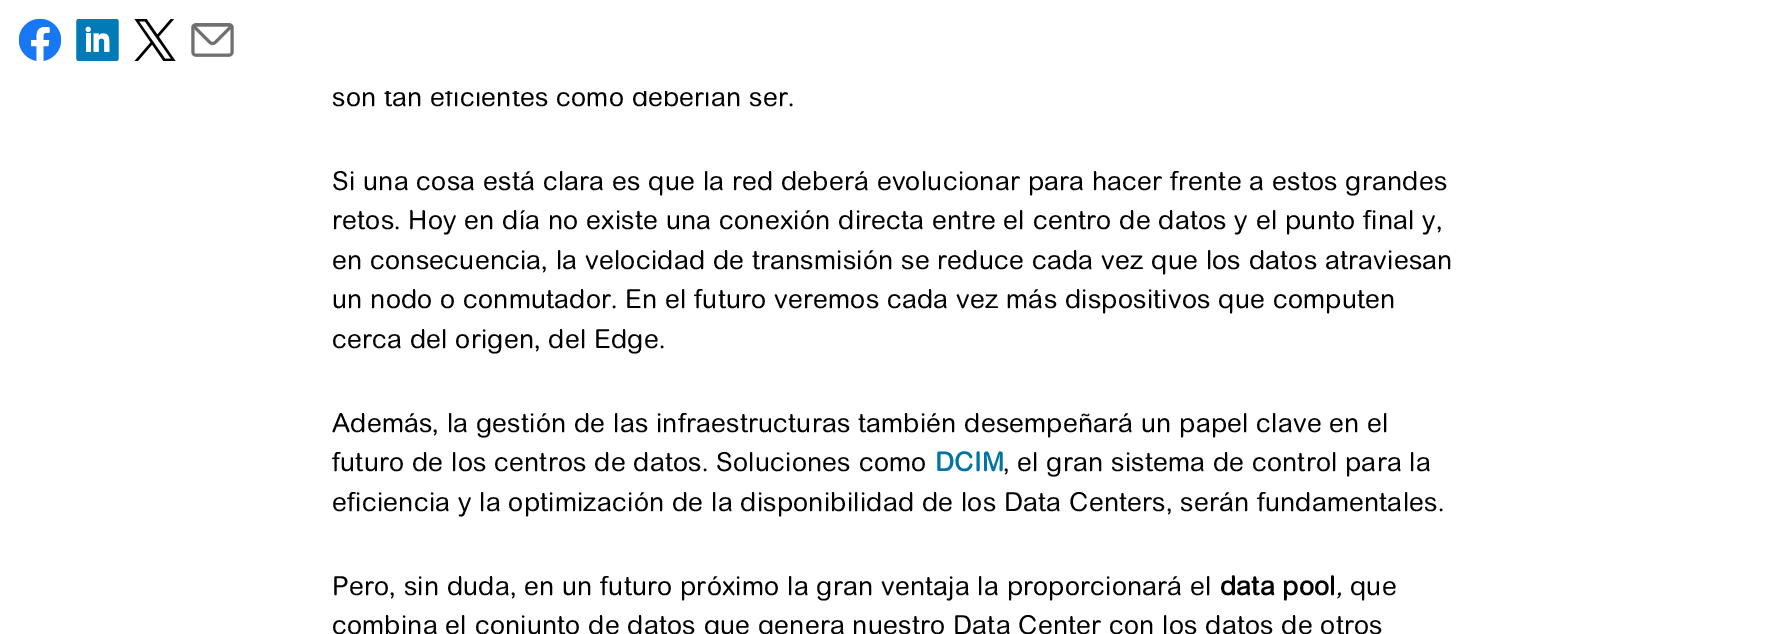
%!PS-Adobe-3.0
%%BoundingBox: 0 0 1788 634
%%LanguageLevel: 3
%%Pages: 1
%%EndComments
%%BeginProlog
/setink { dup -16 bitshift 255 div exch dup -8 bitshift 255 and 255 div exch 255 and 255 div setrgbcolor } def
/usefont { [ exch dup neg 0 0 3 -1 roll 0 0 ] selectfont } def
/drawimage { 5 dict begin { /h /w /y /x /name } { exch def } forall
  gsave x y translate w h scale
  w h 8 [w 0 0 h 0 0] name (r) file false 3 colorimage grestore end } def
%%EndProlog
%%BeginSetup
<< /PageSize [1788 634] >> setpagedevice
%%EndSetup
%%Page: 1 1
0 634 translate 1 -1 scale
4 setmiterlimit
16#FFFFFF setink
0 0 1788 634 rectfill
/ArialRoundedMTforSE-Regular 26.25 usefont
16#000000 setink
332 106 moveto 0.25 0 (son tan eficientes como deberían ser.) ashow
16#FFFFFF setink
386 86 325 5 rectfill
(img1.raw) 19 19 42 42 drawimage
(img2.raw) 76 19 43 42 drawimage
(img3.raw) 134 19 42 42 drawimage
(img4.raw) 191 23 43 34 drawimage
16#000000 setink
332 190 moveto 0.25 0 (Si una cosa está clara es que la red deberá evolucionar para hacer frente a estos grandes) ashow
332 229 moveto 0.25 0 (retos. Hoy en día no existe una conexión directa entre el centro de datos y el punto final y,) ashow
332 269 moveto 0.25 0 (en consecuencia, la velocidad de transmisión se reduce cada vez que los datos atraviesan) ashow
332 308 moveto 0.25 0 (un nodo o conmutador. En el futuro veremos cada vez más dispositivos que computen) ashow
332 348 moveto 0.25 0 (cerca del origen, del Edge.) ashow
332 432 moveto 0.25 0 (Además, la gestión de las infraestructuras también desempeñará un papel clave en el) ashow
332 471 moveto 0.25 0 (futuro de los centros de datos. Soluciones como) ashow
/ArialRoundedMTforSE-Bold 26.25 usefont
16#0075A3 setink
935 471 moveto 0.25 0 (DCIM) ashow
/ArialRoundedMTforSE-Regular 26.25 usefont
16#000000 setink
1003 471 moveto 0.25 0 (, el gran sistema de control para la) ashow
332 511 moveto 0.25 0 (eficiencia y la optimización de la disponibilidad de los Data Centers, serán fundamentales.) ashow
332 595 moveto 0.25 0 (Pero, sin duda, en un futuro próximo la gran ventaja la proporcionará el) ashow
/ArialRoundedMTforSE-Bold 26.25 usefont
1220 595 moveto 0.25 0 (data pool) ashow
/ArialRoundedMTforSE-Italic 26.25 usefont
1336 595 moveto 0.25 0 (,) ashow
/ArialRoundedMTforSE-Regular 26.25 usefont
1350 595 moveto 0.25 0 (que) ashow
332 634 moveto 0.25 0 (combina el conjunto de datos que genera nuestro Data Center con los datos de otros) ashow
showpage
%%EOF
